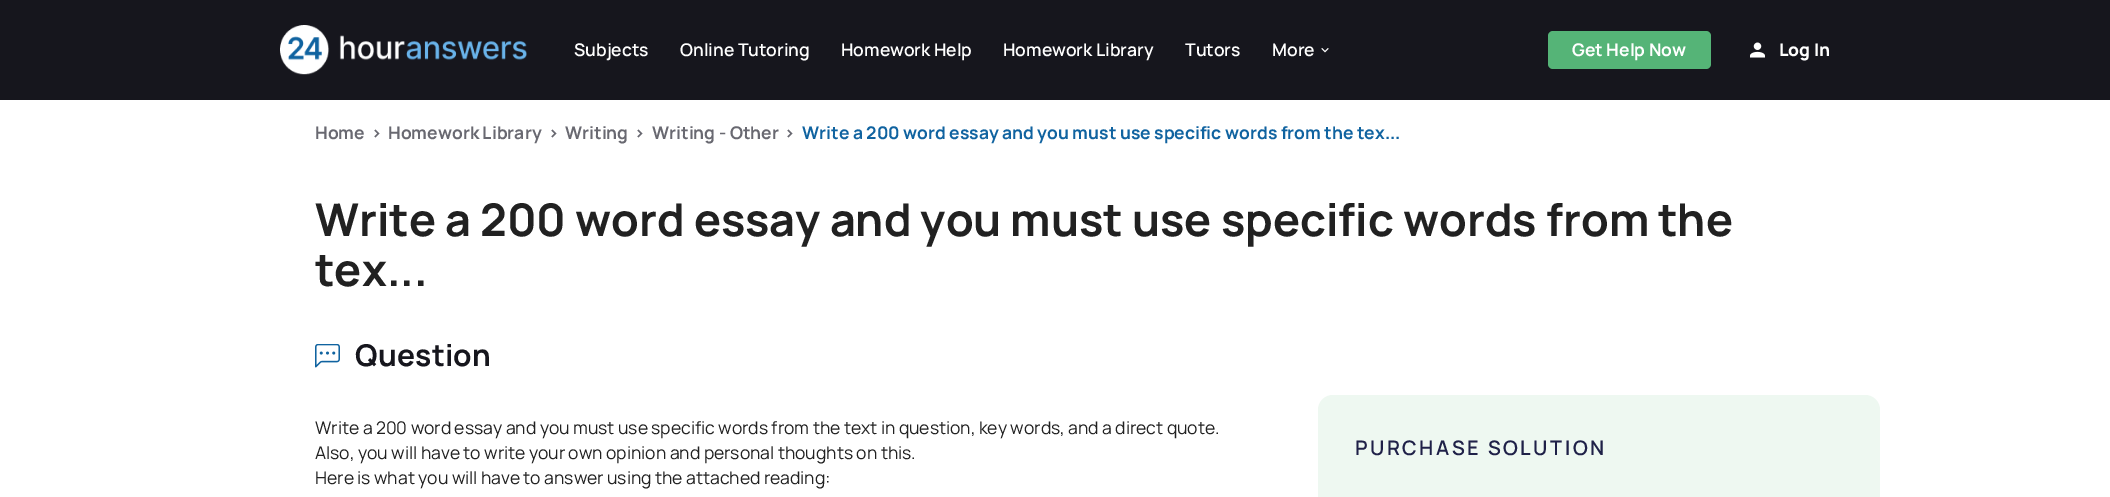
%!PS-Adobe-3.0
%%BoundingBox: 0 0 2110 497
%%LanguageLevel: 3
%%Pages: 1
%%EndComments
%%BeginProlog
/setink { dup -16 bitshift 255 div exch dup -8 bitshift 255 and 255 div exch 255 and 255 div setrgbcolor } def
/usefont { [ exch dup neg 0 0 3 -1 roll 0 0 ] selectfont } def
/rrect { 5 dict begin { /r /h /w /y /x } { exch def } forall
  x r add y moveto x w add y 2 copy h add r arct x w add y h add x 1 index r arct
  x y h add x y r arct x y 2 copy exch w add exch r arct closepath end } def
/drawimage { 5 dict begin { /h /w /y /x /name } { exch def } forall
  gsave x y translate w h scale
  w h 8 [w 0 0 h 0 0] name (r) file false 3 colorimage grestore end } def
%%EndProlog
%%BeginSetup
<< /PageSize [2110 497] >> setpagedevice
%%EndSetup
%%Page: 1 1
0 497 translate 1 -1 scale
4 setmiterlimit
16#FFFFFF setink
0 0 2110 497 rectfill
16#16161D setink
0 0 2110 100 rectfill
(img1.raw) 280 25 247 50 drawimage
/Manrope-SemiBold 17.5 usefont
16#FFFFFF setink
[
    [(Subjects) 574 56]
    [(Online Tutoring) 680 56]
    [(Homework Help) 841 56]
    [(Homework Library) 1003 56]
    [(Tutors) 1185 56]
    [(More) 1272 56]
] { aload pop moveto show } forall
(img2.raw) 1321 48 8 5 drawimage
16#55B477 setink
1548 31 163 38 5 rrect fill
/Manrope-Bold 17.5 usefont
16#FFFFFF setink
1572 56 moveto (Get Help Now) show
(img3.raw) 1750 42 15 16 drawimage
/Manrope-ExtraBold 17.5 usefont
1779 56 moveto (Log In) show
/Manrope-Bold 17.5 usefont
16#696971 setink
[
    [(Home) 315 139]
    [(>) 371 139]
    [(Homework Library) 388 139]
    [(>) 548 139]
    [(Writing) 565 139]
    [(>) 634 139]
    [(Writing - Other) 652 139]
    [(>) 784 139]
] { aload pop moveto show } forall
16#1063A0 setink
802 139 moveto (Write a 200 word essay and you must use specific words from the tex...) show
/Manrope-Bold 45 usefont
16#212121 setink
315 236 moveto (Write a 200 word essay and you must use specific words from the) show
315 286 moveto (tex...) show
(img4.raw) 315 344 25 24 drawimage
/Manrope-Bold 30 usefont
16#16161D setink
355 366 moveto 0.25 0 (Question) ashow
/Manrope-Regular 17.5 usefont
16#212121 setink
[
    [(Write a 200 word essay and you must use specific words from the text in question, key words, and a direct quote.) 315 434]
    [(Also, you will have to write your own opinion and personal thoughts on this.) 315 459]
    [(Here is what you will have to answer using the attached reading:) 315 484]
] { aload pop moveto show } forall
16#EEF8F1 setink
1318 395 562 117 15 rrect fill
/Manrope-SemiBold 20 usefont
16#1F2148 setink
1355 455 moveto 2.5 0 (PURCHASE SOLUTION) ashow
showpage
%%EOF
